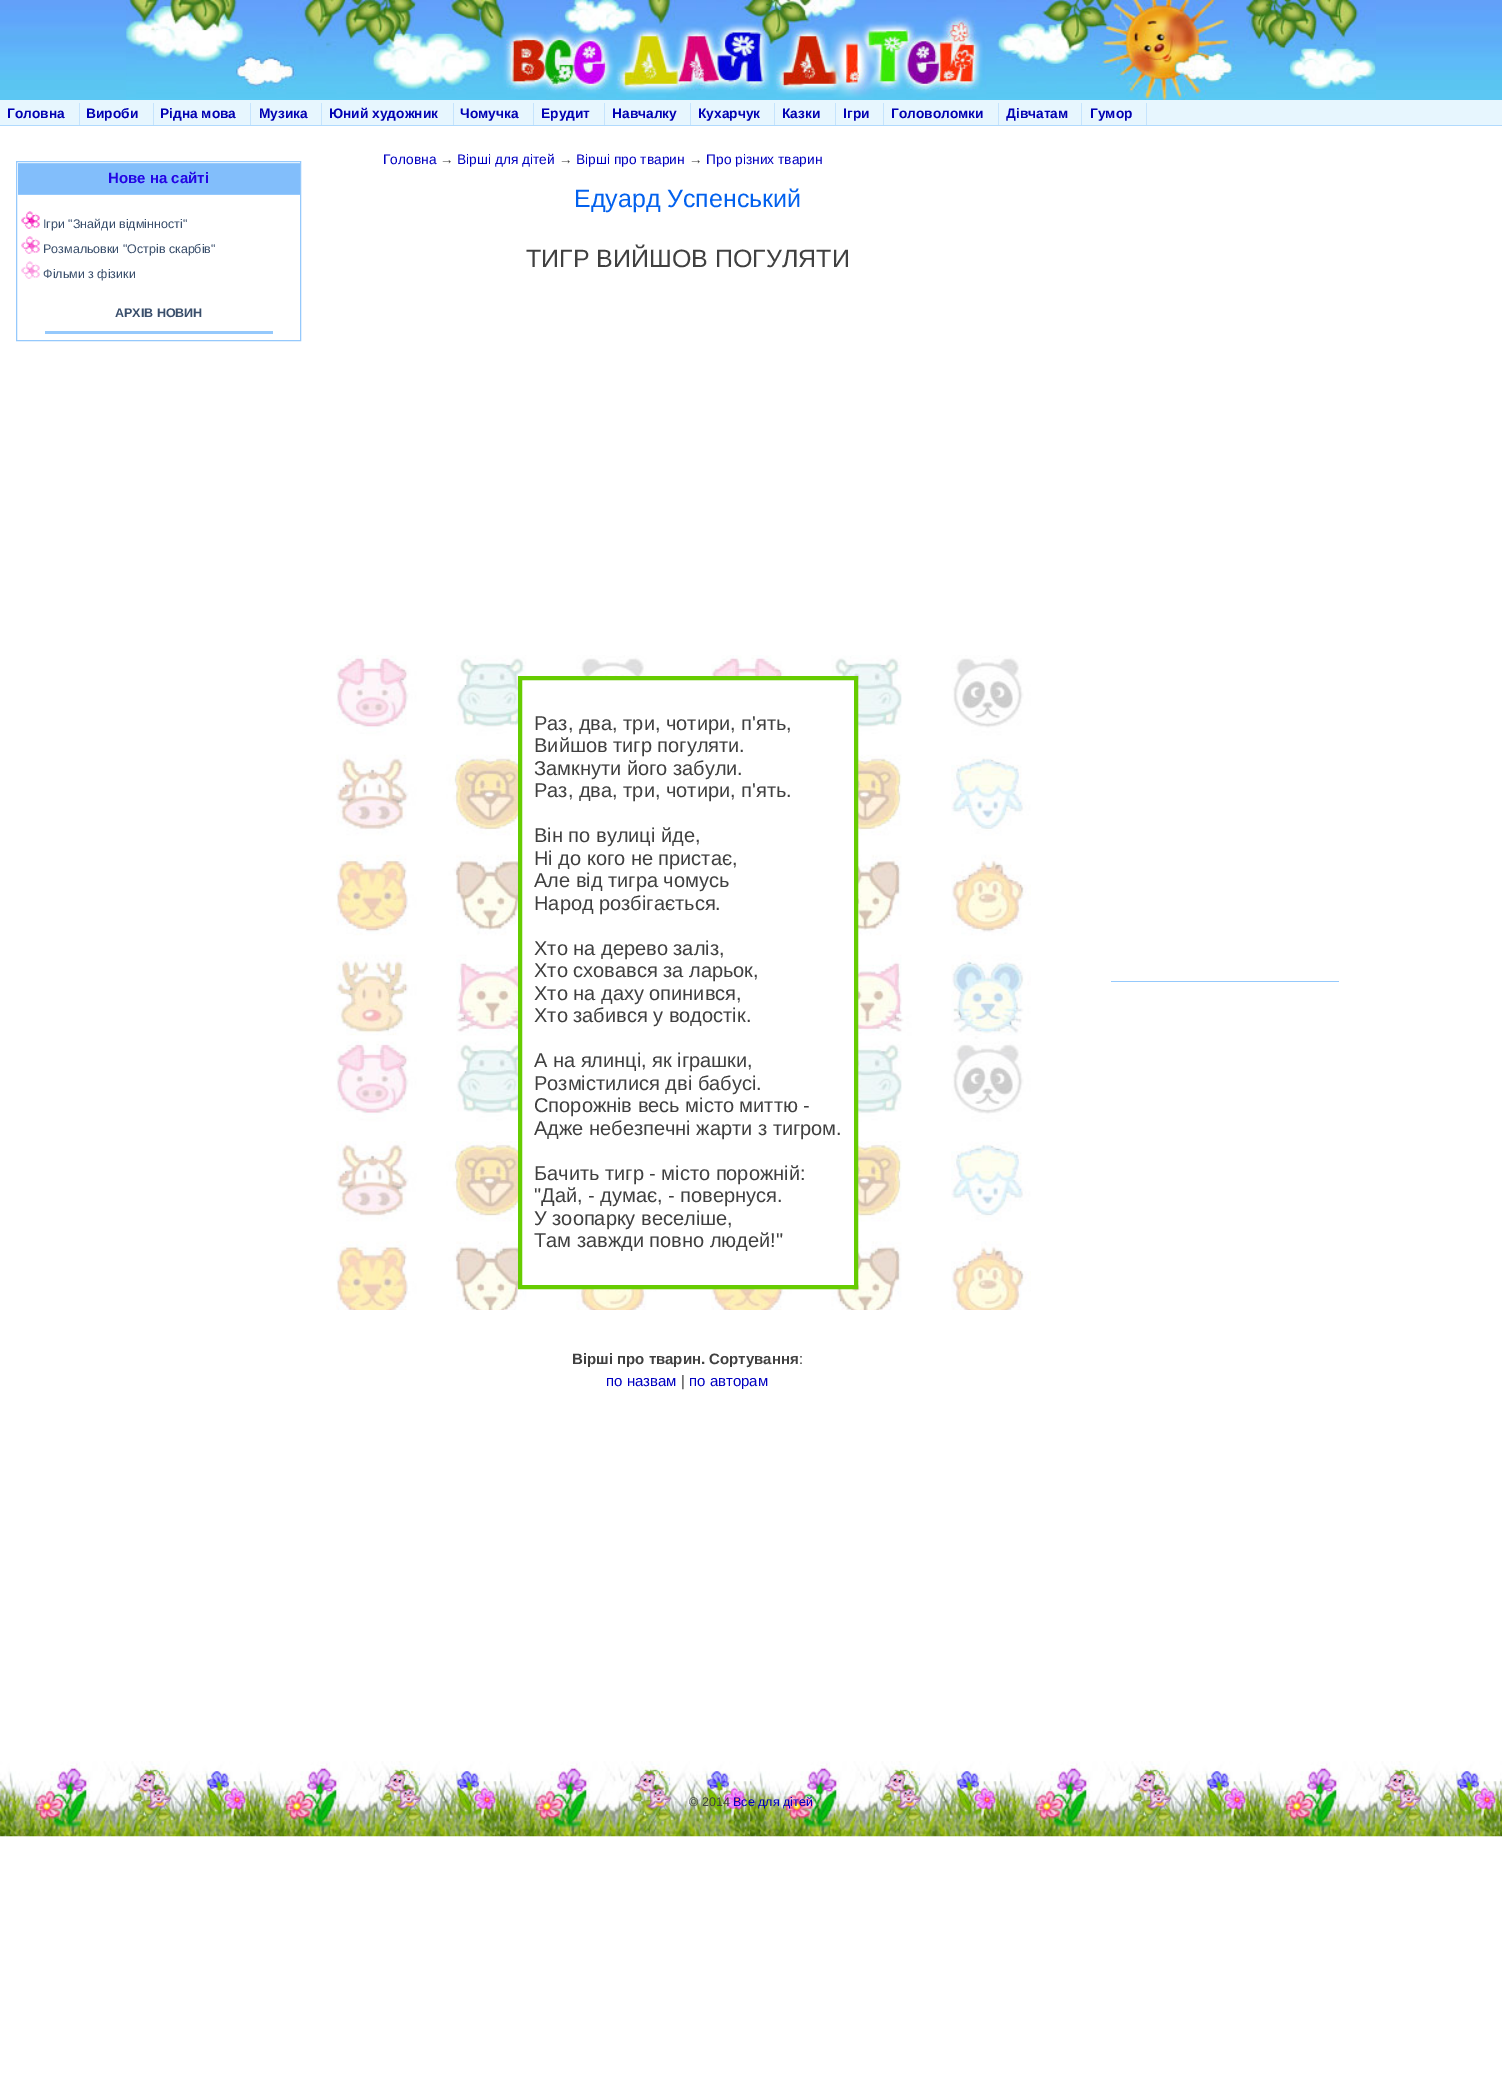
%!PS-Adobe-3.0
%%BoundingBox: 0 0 1502 2087
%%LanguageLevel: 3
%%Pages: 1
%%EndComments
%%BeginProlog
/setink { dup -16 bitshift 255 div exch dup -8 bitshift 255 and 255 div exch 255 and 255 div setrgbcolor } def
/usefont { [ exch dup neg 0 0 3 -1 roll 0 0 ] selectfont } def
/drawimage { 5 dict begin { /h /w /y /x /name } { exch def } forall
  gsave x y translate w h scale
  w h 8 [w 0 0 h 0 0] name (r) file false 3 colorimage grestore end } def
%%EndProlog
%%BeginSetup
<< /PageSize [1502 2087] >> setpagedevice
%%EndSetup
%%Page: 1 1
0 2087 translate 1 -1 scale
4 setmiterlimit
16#FFFFFF setink
0 0 1502 2087 rectfill
(img1.raw) 0 0 1502 100 drawimage
(img2.raw) 126 0 1250 100 drawimage
[
    [0 100 1502 25 16#E7F6FE]
    [0 125 1502 1 16#B1DAFD]
    [79 103 1 22 16#C6E4FD]
] { aload pop setink rectfill } forall
/LiberationSans-Bold 13.75 usefont
16#0000B3 setink
7 118 moveto (Головна) show
16#C6E4FD setink
153 103 1 22 rectfill
16#0000B3 setink
86 118 moveto (Вироби) show
16#C6E4FD setink
250 103 1 22 rectfill
16#0000B3 setink
160 118 moveto (Рідна мова) show
16#C6E4FD setink
321 103 1 22 rectfill
16#0000B3 setink
259 118 moveto (Музика) show
16#C6E4FD setink
453 103 1 22 rectfill
16#0000B3 setink
329 118 moveto (Юний художник) show
16#C6E4FD setink
533 103 1 22 rectfill
16#0000B3 setink
460 118 moveto (Чомучка) show
16#C6E4FD setink
604 103 1 22 rectfill
16#0000B3 setink
541 118 moveto (Ерудит) show
16#C6E4FD setink
690 103 1 22 rectfill
16#0000B3 setink
612 118 moveto (Навчалку) show
16#C6E4FD setink
774 103 1 22 rectfill
16#0000B3 setink
698 118 moveto (Кухарчук) show
16#C6E4FD setink
835 103 1 22 rectfill
16#0000B3 setink
782 118 moveto (Казки) show
16#C6E4FD setink
883 103 1 22 rectfill
16#0000B3 setink
843 118 moveto (Ігри) show
16#C6E4FD setink
998 103 1 22 rectfill
16#0000B3 setink
891 118 moveto (Головоломки) show
16#C6E4FD setink
1081 103 1 22 rectfill
16#0000B3 setink
1006 118 moveto (Дівчатам) show
16#C6E4FD setink
1146 103 1 22 rectfill
16#0000B3 setink
1090 118 moveto (Гумор) show
16#95C9FC setink
16.5 161.5 284 179 rectstroke
[
    [18 164 282 30 16#82BEFB]
    [18 163 282 1 16#95C9FC]
    [18 194 282 1 16#95C9FC]
] { aload pop setink rectfill } forall
/LiberationSans-Bold 15 usefont
16#2304E4 setink
108 183 moveto (Нове на сайті) show
(img3.raw) 21 211 19 18 drawimage
/LiberationSans-Regular 12.5 usefont
16#3A4F6C setink
43 228 moveto (Ігри "Знайди відмінності") show
(img4.raw) 21 236 19 18 drawimage
43 253 moveto (Розмальовки "Острів скарбів") show
(img5.raw) 21 261 19 18 drawimage
43 278 moveto (Фільми з фізики) show
/LiberationSans-Bold 12.5 usefont
115 317 moveto (АРХІВ НОВИН) show
16#95C9FC setink
45 331 228 3 rectfill
/LiberationSans-Regular 13.75 usefont
16#0000C0 setink
383 164 moveto (Головна) show
16#404040 setink
440 164 moveto (→) show
16#0000C0 setink
457 164 moveto (Вірші для дітей) show
16#404040 setink
559 164 moveto (→) show
16#0000C0 setink
576 164 moveto (Вірші про тварин) show
16#404040 setink
689 164 moveto (→) show
16#0000C0 setink
706 164 moveto (Про різних тварин) show
/LiberationSans-Regular 25 usefont
16#0261EE setink
574 207 moveto (Едуард Успенський) show
16#404040 setink
526 267 moveto (ТИГР ВИЙШОВ ПОГУЛЯТИ) show
(img6.raw) 336 655 695 655 drawimage
16#FFFFFF setink
520 678 moveto 856 678 lineto 856 1287 lineto 520 1287 lineto closepath gsave fill grestore
16#66CC00 setink
4 setlinewidth
stroke
/LiberationSans-Regular 20 usefont
16#404040 setink
[
    [(Раз, два, три, чотири, п'ять,) 534 730]
    [(Вийшов тигр погуляти.) 534 752]
    [(Замкнути його забули.) 534 775]
    [(Раз, два, три, чотири, п'ять.) 534 797]
    [(Він по вулиці йде,) 534 842]
    [(Ні до кого не пристає,) 534 865]
    [(Але від тигра чомусь) 534 887]
    [(Народ розбігається.) 534 910]
    [(Хто на дерево заліз,) 534 955]
    [(Хто сховався за ларьок,) 534 977]
    [(Хто на даху опинився,) 534 1000]
    [(Хто забився у водостік.) 534 1022]
    [(А на ялинці, як іграшки,) 534 1067]
    [(Розмістилися дві бабусі.) 534 1090]
    [(Спорожнів весь місто миттю -) 534 1112]
    [(Адже небезпечні жарти з тигром.) 534 1135]
    [(Бачить тигр - місто порожній:) 534 1180]
    [("Дай, - думає, - повернуся.) 534 1202]
    [(У зоопарку веселіше,) 534 1225]
    [(Там завжди повно людей!") 534 1247]
] { aload pop moveto show } forall
/LiberationSans-Bold 15 usefont
572 1364 moveto (Вірші про тварин. Сортування) show
/LiberationSans-Regular 15 usefont
799 1364 moveto (:) show
16#0000C0 setink
606 1386 moveto (по назвам) show
16#404040 setink
681 1386 moveto (|) show
16#0000C0 setink
689 1386 moveto (по авторам) show
16#95C9FC setink
1111 981 228 1 rectfill
(img7.raw) 0 1761 1502 76 drawimage
/LiberationSans-Regular 12.5 usefont
16#404040 setink
689 1806 moveto (© 2014) show
16#0000C0 setink
733 1806 moveto (Все для дітей) show
showpage
%%EOF
